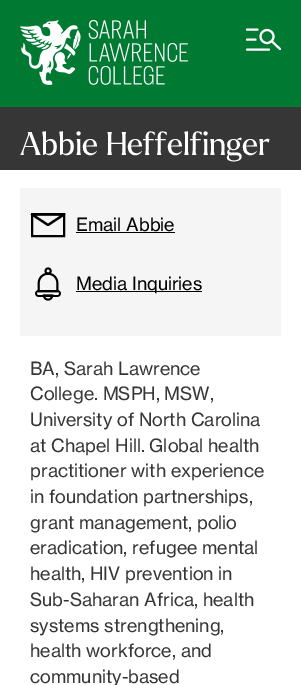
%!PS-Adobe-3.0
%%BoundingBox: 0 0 301 685
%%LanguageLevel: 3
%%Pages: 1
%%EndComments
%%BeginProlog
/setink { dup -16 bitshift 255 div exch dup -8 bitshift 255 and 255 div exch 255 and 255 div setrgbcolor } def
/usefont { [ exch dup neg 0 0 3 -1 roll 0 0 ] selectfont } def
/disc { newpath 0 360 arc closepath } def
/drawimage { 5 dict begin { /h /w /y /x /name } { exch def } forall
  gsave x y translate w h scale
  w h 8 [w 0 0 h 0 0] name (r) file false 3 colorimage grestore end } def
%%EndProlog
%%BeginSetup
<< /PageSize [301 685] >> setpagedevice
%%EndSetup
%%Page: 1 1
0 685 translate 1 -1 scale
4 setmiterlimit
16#FFFFFF setink
0 0 301 685 rectfill
16#007A33 setink
0 0 301 107 rectfill
(img1.raw) 20 20 168 65 drawimage
16#FFFFFF setink
2 setlinewidth
1 setlinecap
247 29.5 moveto 257.5 29.5 lineto 247 39.5 moveto 255.5 39.5 lineto 247 49.5 moveto 269 49.5 lineto stroke
0 setlinecap
267 36.5 6.5 disc stroke
1 setlinecap
1 setlinejoin
271.5 41 moveto 280 49 lineto stroke
16#373637 setink
281 107 20 63 rectfill
0 107 281 63 rectfill
/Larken-Regular 32 usefont
16#FFFFFF setink
20 155 moveto (Abbie Heffelfinger) show
16#F6F5F5 setink
20 188 261 148 rectfill
16#000000 setink
0 setlinecap
0 setlinejoin
32 214 32 22 rectstroke
2.2 setlinewidth
1 setlinecap
1 setlinejoin
48 225 moveto 32 214.5 lineto 64 214.5 lineto closepath stroke
/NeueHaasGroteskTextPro-Regular 18 usefont
76 231 moveto (Email Abbie) show
76 232 99 1 rectfill
(img2.raw) 35 267 26 34 drawimage
76 291 126 1 rectfill
76 290 moveto (Media Inquiries) show
16#373637 setink
[
    [(BA, Sarah Lawrence) 30 375]
    [(College. MSPH, MSW,) 30 400]
    [(University of North Carolina) 30 426]
    [(at Chapel Hill. Global health) 30 452]
    [(practitioner with experience) 30 477]
    [(in foundation partnerships,) 30 503]
    [(grant management, polio) 30 529]
    [(eradication, refugee mental) 30 554]
    [(health, HIV prevention in) 30 580]
    [(Sub-Saharan Africa, health) 30 606]
    [(systems strengthening,) 30 632]
    [(health workforce, and) 30 657]
    [(community-based) 30 683]
] { aload pop moveto show } forall
showpage
%%EOF
